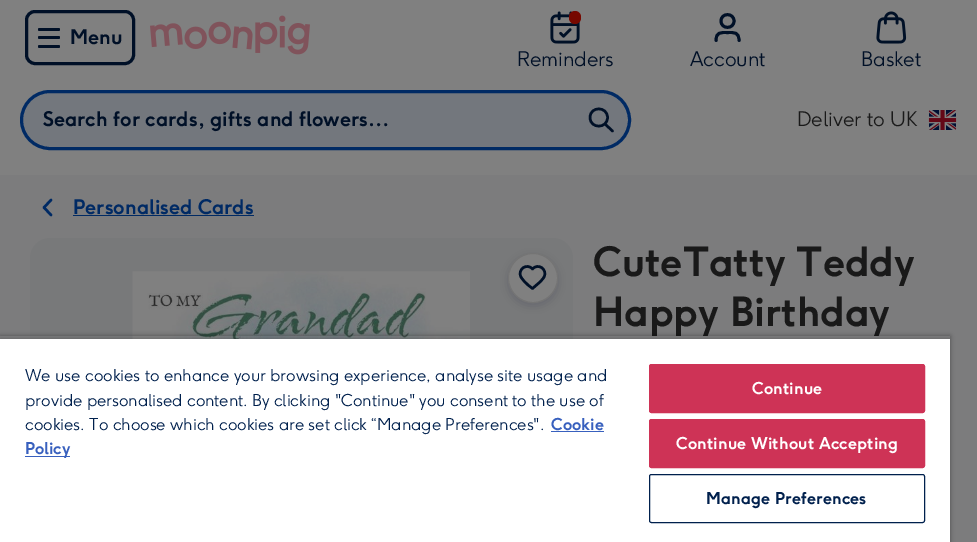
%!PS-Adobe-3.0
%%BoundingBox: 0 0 977 542
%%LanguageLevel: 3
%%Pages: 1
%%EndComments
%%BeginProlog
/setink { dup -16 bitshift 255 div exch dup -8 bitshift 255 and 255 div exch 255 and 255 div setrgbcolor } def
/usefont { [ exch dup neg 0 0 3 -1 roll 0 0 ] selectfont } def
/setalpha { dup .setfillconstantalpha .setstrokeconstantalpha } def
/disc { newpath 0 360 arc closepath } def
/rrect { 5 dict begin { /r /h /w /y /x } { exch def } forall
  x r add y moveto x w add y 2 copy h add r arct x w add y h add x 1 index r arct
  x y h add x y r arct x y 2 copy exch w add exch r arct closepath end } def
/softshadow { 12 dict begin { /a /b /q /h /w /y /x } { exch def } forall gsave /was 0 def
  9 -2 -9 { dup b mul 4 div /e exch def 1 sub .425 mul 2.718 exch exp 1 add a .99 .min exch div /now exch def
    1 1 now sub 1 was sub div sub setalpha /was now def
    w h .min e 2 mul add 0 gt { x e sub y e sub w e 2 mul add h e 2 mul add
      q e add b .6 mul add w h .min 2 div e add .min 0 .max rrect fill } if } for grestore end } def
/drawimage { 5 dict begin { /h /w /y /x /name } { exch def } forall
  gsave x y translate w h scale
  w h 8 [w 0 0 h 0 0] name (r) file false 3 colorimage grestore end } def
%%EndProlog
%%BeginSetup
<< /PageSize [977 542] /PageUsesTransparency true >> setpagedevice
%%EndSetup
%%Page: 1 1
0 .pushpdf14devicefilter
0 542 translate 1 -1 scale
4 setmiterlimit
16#7C7C7D setink
0 0 977 542 rectfill
16#808080 setink
0 0 977 175 rectfill
16#001027 setink
3 setlinewidth
26.5 11.5 107 52 8.5 rrect stroke
38 28 22 3 1.5 rrect fill
38 36 22 3 1.5 rrect fill
38 45 22 3 1.5 rrect fill
/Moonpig-Bold 20 usefont
70 44 moveto (Menu) show
(img1.raw) 150 15 160 40 drawimage
(img2.raw) 550 11 30 33 drawimage
16#760800 setink
569 11 12 13 6 rrect fill
/Moonpig-Light 20 usefont
16#001027 setink
517 66 moveto (Reminders) show
2.9 setlinewidth
1 setlinecap
1 setlinejoin
739 40.5 moveto 739 32 734.5 32.5 727.5 32.5 curveto 720.5 32.5 716 32 716 40.5 curveto 734 21 moveto 734 29.5 721 29.5 721 21 curveto 721 12.5 734 12.5 734 21 curveto stroke
690 66 moveto (Account) show
(img3.raw) 876 11 31 33 drawimage
861 66 moveto (Basket) show
16#73777D setink
21.5 91.5 608 57 28.5 rrect gsave fill grestore
16#002A64 setink
3 setlinewidth
0 setlinecap
0 setlinejoin
stroke
/Moonpig-Bold 20 usefont
16#001027 setink
43 126 moveto (Search for cards, gifts and flowers…) show
2.5 setlinewidth
1 setlinecap
1 setlinejoin
612.5 131 moveto 605 124 lineto 607.5 117.5 moveto 607.5 129 590 129 590 117.5 curveto 590 106 607.5 106 607.5 117.5 curveto stroke
/Moonpig-Light 20 usefont
16#191919 setink
797 126 moveto (Deliver to UK) show
(img4.raw) 928 110 29 20 drawimage
16#002A64 setink
51 215 moveto 44 207.5 lineto 51 200 lineto stroke
/Moonpig-Bold 20 usefont
73 214 moveto (Personalised Cards) show
73 215 181 1 rectfill
16#78797A setink
30 238 543 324 20 rrect fill
(img5.raw) 132 271 338 68 drawimage
16#000227 setink
508 256 50 50 25 5 0.15 softshadow
16#808080 setink
533 278 24.5 disc gsave fill grestore
16#747474 setink
1 setlinewidth
0 setlinecap
0 setlinejoin
stroke
16#001027 setink
2.5 setlinewidth
1 setlinecap
1 setlinejoin
532.5 269 moveto 527 262.5 517 269.5 521 277 curveto 522.5 280 525.5 282.5 528 285 curveto 532.5 288.5 lineto 536.5 285 lineto 539.5 282.5 542.5 280 544 277 curveto 548 269.5 538 262.5 532.5 269 curveto stroke
/Moonpig-Bold 40 usefont
16#191919 setink
593 276 moveto (CuteTatty Teddy) show
593 326 moveto (Happy Birthday) show
gsave
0 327 moveto 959 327 lineto 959 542 lineto 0 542 lineto closepath 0 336 moveto 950 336 lineto 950 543 lineto 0 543 lineto closepath eoclip newpath
16#000000 setink
0 336 950 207 0 2.5 0.35 softshadow
grestore
gsave
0 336 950 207 rectclip
16#000000 setink
0 339 950 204 0 2.5 0.2 softshadow
grestore
16#FFFFFF setink
0 339 950 203 rectfill
/Moonpig-Light 16.25 usefont
16#00204D setink
[
    [(We use cookies to enhance your browsing experience, analyse site usage and) 25 381]
    [(provide personalised content. By clicking "Continue" you consent to the use of) 25 406]
    [(cookies. To choose which cookies are set click “Manage Preferences".) 25 430]
] { aload pop moveto show } forall
/Moonpig-Bold 16.25 usefont
16#3860BE setink
551 430 moveto (Cookie) show
551 431 53 1 rectfill
25 456 45 1 rectfill
25 454 moveto (Policy) show
16#CE3356 setink
649.5 364.5 275 48 2 rrect gsave fill grestore
1 setlinewidth
0 setlinecap
0 setlinejoin
stroke
16#FFFFFF setink
752 394 moveto 0.15 0 (Continue) ashow
16#CE3356 setink
649.5 419.5 275 48 2 rrect gsave fill grestore
stroke
16#FFFFFF setink
676 449 moveto 0.15 0 (Continue Without Accepting) ashow
16#00204D setink
649.5 474.5 275 48 2 rrect stroke
706 504 moveto 0.15 0 (Manage Preferences) ashow
.poppdf14devicefilter showpage
%%EOF
